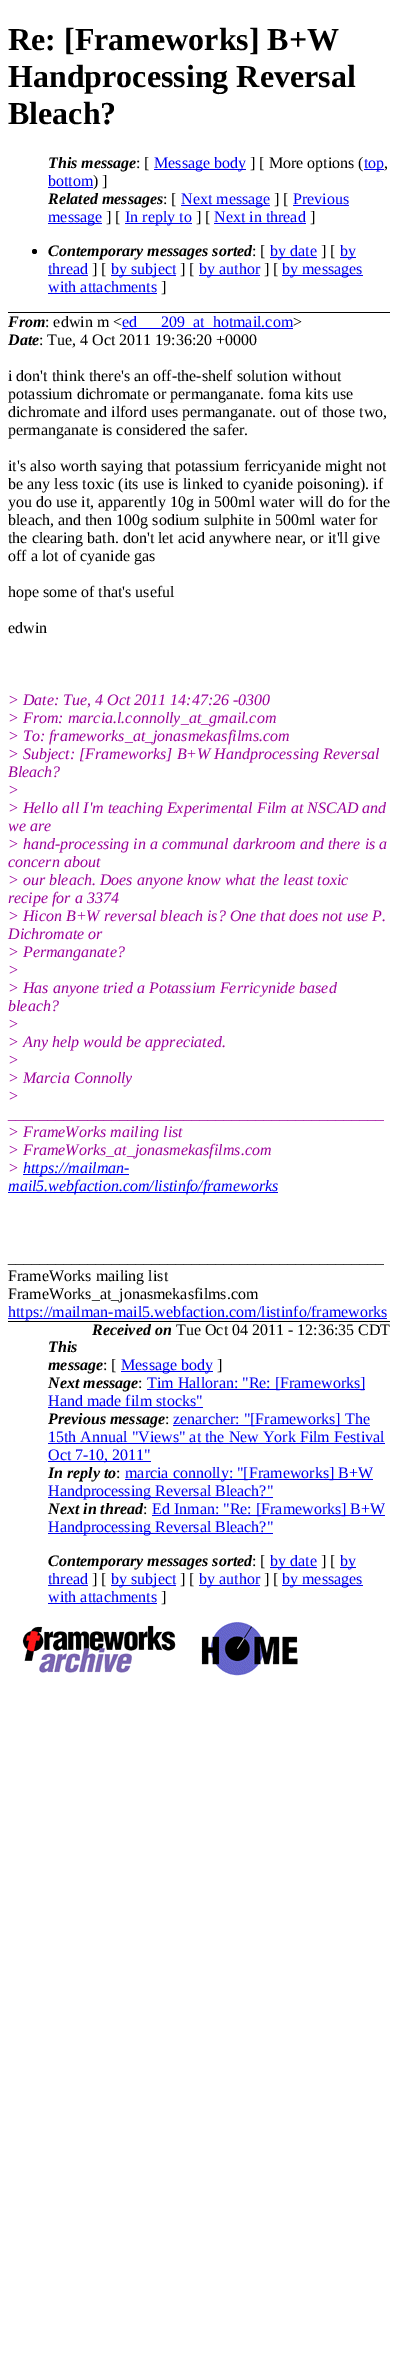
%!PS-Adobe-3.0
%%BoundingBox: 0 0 398 2371
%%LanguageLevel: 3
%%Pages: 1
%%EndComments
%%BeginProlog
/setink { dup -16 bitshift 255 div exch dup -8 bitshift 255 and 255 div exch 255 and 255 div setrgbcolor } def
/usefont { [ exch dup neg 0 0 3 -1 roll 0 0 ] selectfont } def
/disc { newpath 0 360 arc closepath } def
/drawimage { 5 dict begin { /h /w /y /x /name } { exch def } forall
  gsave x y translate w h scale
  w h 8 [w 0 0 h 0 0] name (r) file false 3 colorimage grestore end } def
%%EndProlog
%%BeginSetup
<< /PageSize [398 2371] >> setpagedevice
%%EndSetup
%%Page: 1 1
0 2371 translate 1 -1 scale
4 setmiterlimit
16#FFFFFF setink
0 0 398 2371 rectfill
16#000000 setink
8 312 382 1 rectfill
/LiberationSerif-Bold 32 usefont
[
    [(Re: [Frameworks] B+W) 8 50]
    [(Handprocessing Reversal) 8 87]
    [(Bleach?) 8 124]
] { aload pop moveto show } forall
/LiberationSerif-BoldItalic 16 usefont
48 168 moveto (This message) show
/LiberationSerif-Regular 16 usefont
136 168 moveto (: [) show
16#0000EE setink
154 169 92 1 rectfill
154 168 moveto (Message body) show
16#000000 setink
250 168 moveto (] [ More options \() show
16#0000EE setink
364 169 20 1 rectfill
364 168 moveto (top) show
16#000000 setink
384 168 moveto (,) show
16#0000EE setink
48 186 moveto (bottom) show
48 187 45 1 rectfill
16#000000 setink
93 186 moveto (\) ]) show
/LiberationSerif-BoldItalic 16 usefont
48 204 moveto (Related messages) show
/LiberationSerif-Regular 16 usefont
163 204 moveto (: [) show
16#0000EE setink
181 205 89 1 rectfill
181 204 moveto (Next message) show
16#000000 setink
274 204 moveto (] [) show
16#0000EE setink
293 204 moveto (Previous) show
293 205 56 1 rectfill
48 223 54 1 rectfill
48 222 moveto (message) show
16#000000 setink
106 222 moveto (] [) show
16#0000EE setink
125 223 67 1 rectfill
125 222 moveto (In reply to) show
16#000000 setink
196 222 moveto (] [) show
16#0000EE setink
214 222 moveto (Next in thread) show
214 223 92 1 rectfill
16#000000 setink
310 222 moveto (]) show
34.5 251.5 2.5 disc fill
/LiberationSerif-BoldItalic 16 usefont
48 256 moveto (Contemporary messages sorted) show
/LiberationSerif-Regular 16 usefont
252 256 moveto (: [) show
16#0000EE setink
270 257 47 1 rectfill
270 256 moveto (by date) show
16#000000 setink
321 256 moveto (] [) show
16#0000EE setink
340 257 16 1 rectfill
340 256 moveto (by) show
48 274 moveto (thread) show
48 275 40 1 rectfill
16#000000 setink
92 274 moveto (] [) show
16#0000EE setink
111 275 65 1 rectfill
111 274 moveto (by subject) show
16#000000 setink
180 274 moveto (] [) show
16#0000EE setink
199 275 61 1 rectfill
199 274 moveto (by author) show
16#000000 setink
264 274 moveto (] [) show
16#0000EE setink
282 275 81 1 rectfill
282 274 moveto (by messages) show
48 292 moveto (with attachments) show
48 293 109 1 rectfill
16#000000 setink
161 292 moveto (]) show
/LiberationSerif-BoldItalic 16 usefont
8 327 moveto (From) show
/LiberationSerif-Regular 16 usefont
45 327 moveto (: edwin m <) show
16#0000EE setink
122 327 moveto (ed) show
122 328 171 1 rectfill
161 327 moveto (209_at_hotmail.com) show
16#000000 setink
293 327 moveto (>) show
/LiberationSerif-BoldItalic 16 usefont
8 345 moveto (Date) show
/LiberationSerif-Regular 16 usefont
[
    [(: Tue, 4 Oct 2011 19:36:20 +0000) 39 345]
    [(i don't think there's an off-the-shelf solution without) 8 381]
    [(potassium dichromate or permanganate. foma kits use) 8 399]
    [(dichromate and ilford uses permanganate. out of those two,) 8 417]
    [(permanganate is considered the safer.) 8 435]
    [(it's also worth saying that potassium ferricyanide might not) 8 471]
    [(be any less toxic \(its use is linked to cyanide poisoning\). if) 8 489]
    [(you do use it, apparently 10g in 500ml water will do for the) 8 507]
    [(bleach, and then 100g sodium sulphite in 500ml water for) 8 525]
    [(the clearing bath. don't let acid anywhere near, or it'll give) 8 543]
    [(off a lot of cyanide gas) 8 561]
    [(hope some of that's useful) 8 597]
    [(edwin) 8 633]
] { aload pop moveto show } forall
/LiberationSerif-Italic 16 usefont
16#990099 setink
[
    [(> Date: Tue, 4 Oct 2011 14:47:26 -0300) 8 705]
    [(> From: marcia.l.connolly_at_gmail.com) 8 723]
    [(> To: frameworks_at_jonasmekasfilms.com) 8 741]
    [(> Subject: [Frameworks] B+W Handprocessing Reversal) 8 759]
    [(Bleach?) 8 777]
    [(>) 8 795]
    [(> Hello all I'm teaching Experimental Film at NSCAD and) 8 813]
    [(we are) 8 831]
    [(> hand-processing in a communal darkroom and there is a) 8 849]
    [(concern about) 8 867]
    [(> our bleach. Does anyone know what the least toxic) 8 885]
    [(recipe for a 3374) 8 903]
    [(> Hicon B+W reversal bleach is? One that does not use P.) 8 921]
    [(Dichromate or) 8 939]
    [(> Permanganate?) 8 957]
    [(>) 8 975]
    [(> Has anyone tried a Potassium Ferricynide based) 8 993]
    [(bleach?) 8 1011]
    [(>) 8 1029]
    [(> Any help would be appreciated.) 8 1047]
    [(>) 8 1065]
    [(> Marcia Connolly) 8 1083]
    [(>) 8 1101]
    [(_______________________________________________) 8 1119]
    [(> FrameWorks mailing list) 8 1137]
    [(> FrameWorks_at_jonasmekasfilms.com) 8 1155]
    [(>) 8 1173]
] { aload pop moveto show } forall
16#0000EE setink
23 1174 106 1 rectfill
23 1173 moveto (https://mailman-) show
8 1192 270 1 rectfill
8 1191 moveto (mail5.webfaction.com/listinfo/frameworks) show
/LiberationSerif-Regular 16 usefont
16#000000 setink
[
    [(_______________________________________________) 8 1263]
    [(FrameWorks mailing list) 8 1281]
    [(FrameWorks_at_jonasmekasfilms.com) 8 1299]
] { aload pop moveto show } forall
16#0000EE setink
8 1318 379 1 rectfill
8 1317 moveto (https://mailman-mail5.webfaction.com/listinfo/frameworks) show
/LiberationSerif-BoldItalic 16 usefont
16#000000 setink
92 1335 moveto (Received on) show
/LiberationSerif-Regular 16 usefont
176 1335 moveto (Tue Oct 04 2011 - 12:36:35 CDT) show
8 1321 382 1 rectfill
/LiberationSerif-BoldItalic 16 usefont
48 1352 moveto (This) show
48 1370 moveto (message) show
/LiberationSerif-Regular 16 usefont
103 1370 moveto (: [) show
16#0000EE setink
121 1371 92 1 rectfill
121 1370 moveto (Message body) show
16#000000 setink
217 1370 moveto (]) show
/LiberationSerif-BoldItalic 16 usefont
48 1388 moveto (Next message) show
/LiberationSerif-Regular 16 usefont
138 1388 moveto (:) show
16#0000EE setink
147 1389 218 1 rectfill
147 1388 moveto (Tim Halloran: "Re: [Frameworks]) show
48 1406 moveto (Hand made film stocks") show
48 1407 155 1 rectfill
/LiberationSerif-BoldItalic 16 usefont
16#000000 setink
48 1424 moveto (Previous message) show
/LiberationSerif-Regular 16 usefont
165 1424 moveto (:) show
16#0000EE setink
173 1425 197 1 rectfill
173 1424 moveto (zenarcher: "[Frameworks] The) show
48 1442 moveto (15th Annual "Views" at the New York Film Festival) show
48 1443 337 1 rectfill
48 1461 103 1 rectfill
48 1460 moveto (Oct 7-10, 2011") show
/LiberationSerif-BoldItalic 16 usefont
16#000000 setink
48 1478 moveto (In reply to) show
/LiberationSerif-Regular 16 usefont
116 1478 moveto (:) show
16#0000EE setink
125 1479 248 1 rectfill
125 1478 moveto (marcia connolly: "[Frameworks] B+W) show
48 1497 225 1 rectfill
48 1496 moveto (Handprocessing Reversal Bleach?") show
/LiberationSerif-BoldItalic 16 usefont
16#000000 setink
48 1514 moveto (Next in thread) show
/LiberationSerif-Regular 16 usefont
143 1514 moveto (:) show
16#0000EE setink
152 1515 233 1 rectfill
152 1514 moveto (Ed Inman: "Re: [Frameworks] B+W) show
48 1533 225 1 rectfill
48 1532 moveto (Handprocessing Reversal Bleach?") show
/LiberationSerif-BoldItalic 16 usefont
16#000000 setink
48 1566 moveto (Contemporary messages sorted) show
/LiberationSerif-Regular 16 usefont
252 1566 moveto (: [) show
16#0000EE setink
270 1567 47 1 rectfill
270 1566 moveto (by date) show
16#000000 setink
321 1566 moveto (] [) show
16#0000EE setink
340 1567 16 1 rectfill
340 1566 moveto (by) show
48 1584 moveto (thread) show
48 1585 40 1 rectfill
16#000000 setink
92 1584 moveto (] [) show
16#0000EE setink
111 1585 65 1 rectfill
111 1584 moveto (by subject) show
16#000000 setink
180 1584 moveto (] [) show
16#0000EE setink
199 1585 61 1 rectfill
199 1584 moveto (by author) show
16#000000 setink
264 1584 moveto (] [) show
16#0000EE setink
282 1585 81 1 rectfill
282 1584 moveto (by messages) show
48 1602 moveto (with attachments) show
48 1603 109 1 rectfill
16#000000 setink
161 1602 moveto (]) show
(img1.raw) 22 1625 154 48 drawimage
(img2.raw) 201 1622 97 54 drawimage
showpage
%%EOF
